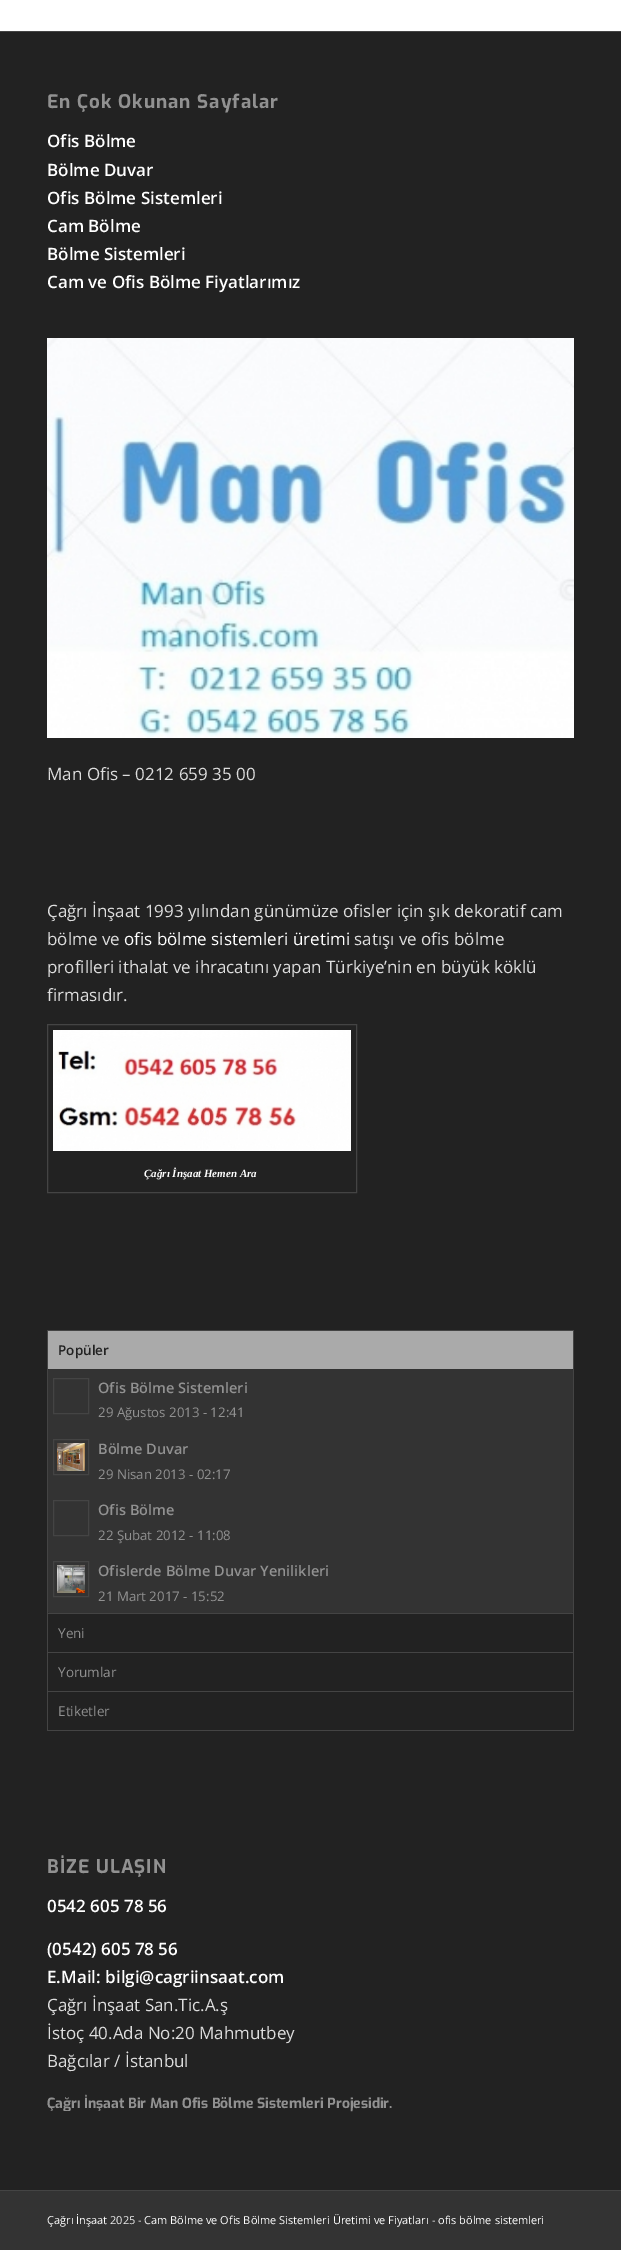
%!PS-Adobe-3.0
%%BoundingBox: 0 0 621 2250
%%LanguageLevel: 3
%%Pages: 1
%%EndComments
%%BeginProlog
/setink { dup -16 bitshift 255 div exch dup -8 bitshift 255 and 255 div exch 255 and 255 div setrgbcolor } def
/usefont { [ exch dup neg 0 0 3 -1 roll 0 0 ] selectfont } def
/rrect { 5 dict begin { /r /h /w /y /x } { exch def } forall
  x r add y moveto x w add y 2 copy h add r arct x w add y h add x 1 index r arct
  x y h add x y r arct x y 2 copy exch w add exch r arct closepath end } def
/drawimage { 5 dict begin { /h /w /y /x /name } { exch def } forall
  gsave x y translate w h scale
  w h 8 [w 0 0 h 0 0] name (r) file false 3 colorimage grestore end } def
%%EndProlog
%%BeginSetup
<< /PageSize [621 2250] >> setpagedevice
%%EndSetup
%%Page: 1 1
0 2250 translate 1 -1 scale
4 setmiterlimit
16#FFFFFF setink
0 0 621 2250 rectfill
16#222222 setink
0 32 621 2158 rectfill
16#444444 setink
0 31 621 1 rectfill
/Exo-Bold 18.75 usefont
16#919191 setink
47 108 moveto 1 0 (En Çok Okunan Sayfalar) ashow
/OpenSans-SemiBold 17 usefont
16#FFFFFF setink
[
    [(Ofis Bölme) 47 147]
    [(Bölme Duvar) 47 176]
    [(Ofis Bölme Sistemleri) 47 204]
    [(Cam Bölme) 47 232]
    [(Bölme Sistemleri) 47 260]
    [(Cam ve Ofis Bölme Fiyatlarımız) 47 288]
] { aload pop moveto show } forall
(img1.raw) 47 338 527 400 drawimage
/OpenSans-Regular 17 usefont
16#DDDDDD setink
[
    [(Man Ofis – 0212 659 35 00) 47 780]
    [(Çağrı İnşaat 1993 yılından günümüze ofisler için şık dekoratif cam) 47 917]
    [(bölme ve) 47 945]
] { aload pop moveto show } forall
16#FFFFFF setink
124 945 moveto (ofis bölme sistemleri üretimi) show
16#DDDDDD setink
[
    [(satışı ve ofis bölme) 354 945]
    [(profilleri ithalat ve ihracatını yapan Türkiye’nin en büyük köklü) 47 973]
    [(firmasıdır.) 47 1001]
] { aload pop moveto show } forall
16#444444 setink
47.5 1024.5 309 168 rectstroke
(img2.raw) 53 1030 298 121 drawimage
/LiberationSerif-BoldItalic 11 usefont
16#FFFFFF setink
144 1177 moveto (Çağrı İnşaat Hemen Ara) show
[
    [573 1330 1 401 16#444444]
    [47 1730 527 1 16#444444]
    [47 1330 1 401 16#444444]
    [48 1331 525 38 16#AAAAAA]
    [48 1330 525 1 16#444444]
] { aload pop setink rectfill } forall
/OpenSans-SemiBold 13.5 usefont
16#222222 setink
58 1355 moveto (Popüler) show
16#333333 setink
48 1369 525 244 2 rrect fill
16#444444 setink
53.5 1378.5 35 35 rectstroke
/OpenSans-SemiBold 14.5 usefont
16#919191 setink
98 1393 moveto (Ofis Bölme Sistemleri) show
/OpenSans-Regular 13.25 usefont
98 1417 moveto (29 Ağustos 2013 - 12:41) show
16#444444 setink
53.5 1439.5 35 35 rectstroke
(img3.raw) 57 1443 28 28 drawimage
/OpenSans-SemiBold 14.5 usefont
16#919191 setink
98 1454 moveto (Bölme Duvar) show
/OpenSans-Regular 13.25 usefont
98 1479 moveto (29 Nisan 2013 - 02:17) show
16#444444 setink
53.5 1500.5 35 35 rectstroke
/OpenSans-SemiBold 14.5 usefont
16#919191 setink
98 1515 moveto (Ofis Bölme) show
/OpenSans-Regular 13.25 usefont
98 1540 moveto (22 Şubat 2012 - 11:08) show
16#444444 setink
53.5 1561.5 35 35 rectstroke
(img4.raw) 57 1565 28 28 drawimage
/OpenSans-SemiBold 14.5 usefont
16#919191 setink
98 1576 moveto (Ofislerde Bölme Duvar Yenilikleri) show
/OpenSans-Regular 13.25 usefont
98 1601 moveto (21 Mart 2017 - 15:52) show
16#444444 setink
48 1613 525 1 rectfill
/OpenSans-Regular 13.5 usefont
16#919191 setink
58 1638 moveto (Yeni) show
16#444444 setink
48 1652 525 1 rectfill
16#919191 setink
58 1677 moveto (Yorumlar) show
16#444444 setink
48 1691 525 1 rectfill
16#919191 setink
58 1716 moveto (Etiketler) show
/Exo-Bold 18.75 usefont
47 1873 moveto 1 0 (BİZE ULAŞIN) ashow
/OpenSans-SemiBold 17 usefont
16#FFFFFF setink
[
    [(0542 605 78 56) 47 1912]
    [(\(0542\) 605 78 56) 47 1955]
    [(E.Mail: bilgi@cagriinsaat.com) 47 1983]
] { aload pop moveto show } forall
/OpenSans-Regular 17 usefont
16#DDDDDD setink
[
    [(Çağrı İnşaat San.Tic.A.ş) 47 2011]
    [(İstoç 40.Ada No:20 Mahmutbey) 47 2039]
    [(Bağcılar / İstanbul) 47 2067]
] { aload pop moveto show } forall
gsave
47 1841 527 270 rectclip
/Exo-Bold 14 usefont
16#919191 setink
47 2108 moveto (Çağrı İnşaat Bir) show
grestore
/Exo-Bold 14 usefont
16#919191 setink
150 2108 moveto (Man Ofis Bölme Sistemleri Projesidir.) show
16#333333 setink
0 2191 621 59 rectfill
16#444444 setink
0 2190 621 1 rectfill
/OpenSans-Regular 11 usefont
16#FFFFFF setink
47 2224 moveto (Çağrı İnşaat) show
16#EEEEEE setink
110 2224 moveto (2025 -) show
16#FFFFFF setink
144 2224 moveto (Cam Bölme ve Ofis Bölme Sistemleri Üretimi ve Fiyatları) show
16#EEEEEE setink
432 2224 moveto (-) show
16#FFFFFF setink
438 2224 moveto (ofis bölme sistemleri) show
showpage
%%EOF
